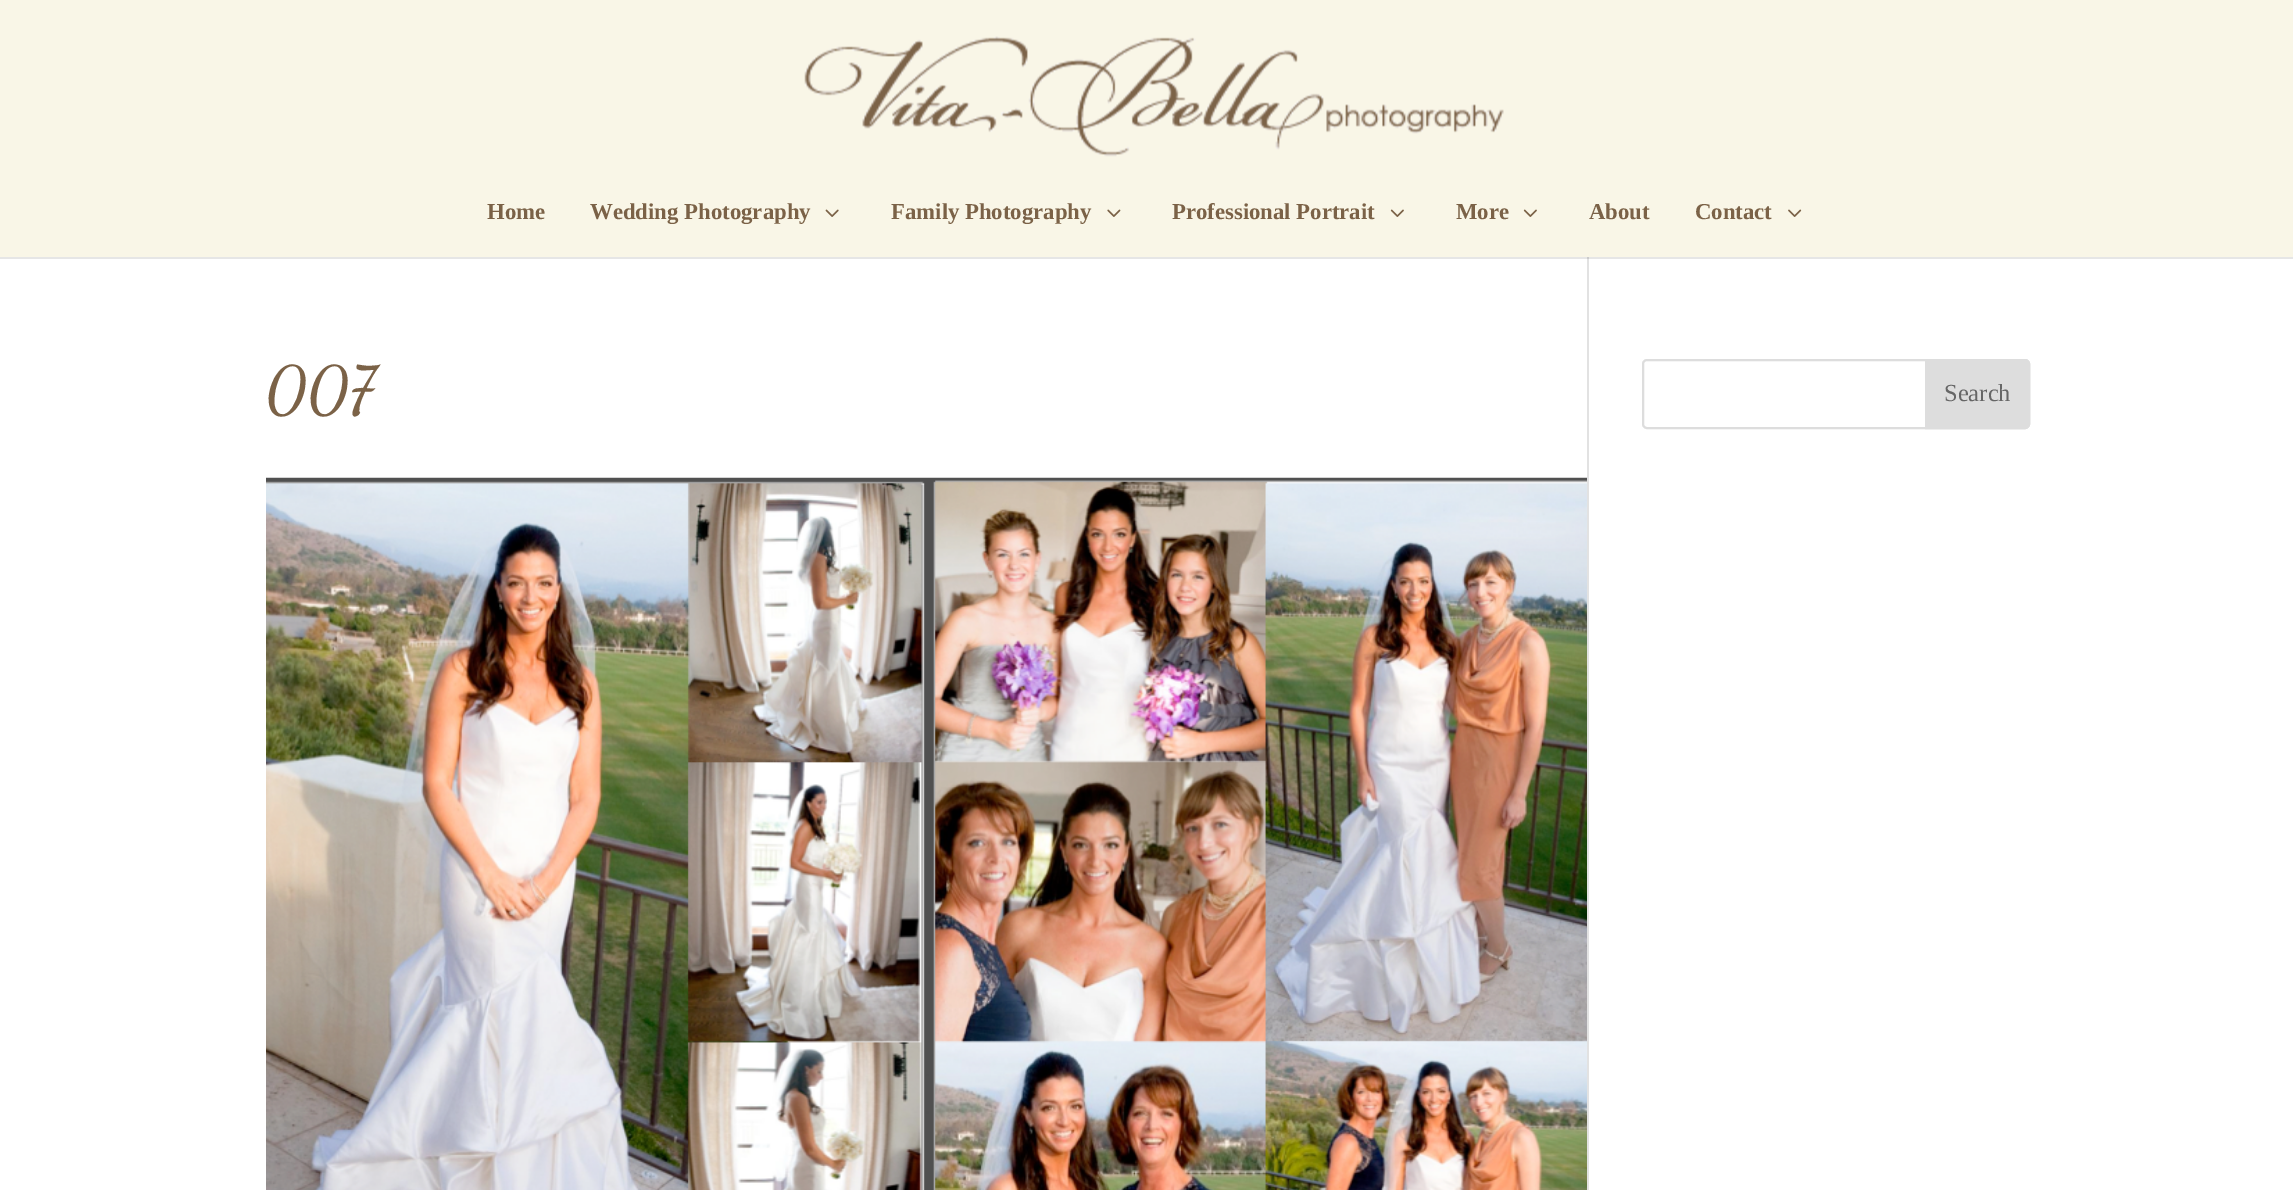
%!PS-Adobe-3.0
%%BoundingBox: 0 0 2293 1190
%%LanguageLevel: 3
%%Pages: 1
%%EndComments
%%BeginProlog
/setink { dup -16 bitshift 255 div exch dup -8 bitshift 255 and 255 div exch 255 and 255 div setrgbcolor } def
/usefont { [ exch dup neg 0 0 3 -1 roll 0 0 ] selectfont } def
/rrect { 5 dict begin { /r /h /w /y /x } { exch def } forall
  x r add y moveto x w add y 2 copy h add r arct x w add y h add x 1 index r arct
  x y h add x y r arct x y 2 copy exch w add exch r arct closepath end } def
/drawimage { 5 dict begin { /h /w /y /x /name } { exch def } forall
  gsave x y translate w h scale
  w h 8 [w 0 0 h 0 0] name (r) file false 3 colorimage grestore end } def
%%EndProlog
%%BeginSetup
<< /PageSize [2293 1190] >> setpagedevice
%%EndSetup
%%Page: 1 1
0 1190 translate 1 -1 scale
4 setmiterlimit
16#F9F6E7 setink
0 0 2293 1190 rectfill
(img1.raw) 804 36 700 121 drawimage
/LiberationSerif-Bold 22.75 usefont
16#7B6247 setink
487 219 moveto (Home) show
590 219 moveto (Wedding Photography) show
(img2.raw) 825 209 14 8 drawimage
891 219 moveto (Family Photography) show
(img3.raw) 1107 209 14 8 drawimage
1172 219 moveto (Professional Portrait) show
(img4.raw) 1390 209 14 8 drawimage
1456 219 moveto (More) show
(img4.raw) 1523 209 14 8 drawimage
1589 219 moveto (About) show
1695 219 moveto (Contact) show
(img5.raw) 1788 209 14 8 drawimage
[
    [0 259 2293 931 16#FFFFFF]
    [0 257 2293 2 16#E6E6E6]
    [1587 257 2 933 16#E2E2E2]
    [1587 257 2 2 16#CBCBCB]
] { aload pop setink rectfill } forall
/DancingScript-Medium 65 usefont
16#7B6247 setink
265 411 moveto (007) show
(img6.raw) 266 477 1321 713 drawimage
16#DDDDDD setink
2 setlinewidth
1643 360 386 68 4 rrect stroke
1926 360 moveto 2025 360 lineto 2027 360 2029 362 2029 364 curveto 2029 424 lineto 2029 426 2027 428 2025 428 curveto 1926 428 lineto closepath gsave fill grestore
stroke
/LiberationSerif-Regular 24.5 usefont
16#666666 setink
1944 401 moveto (Search) show
showpage
%%EOF
